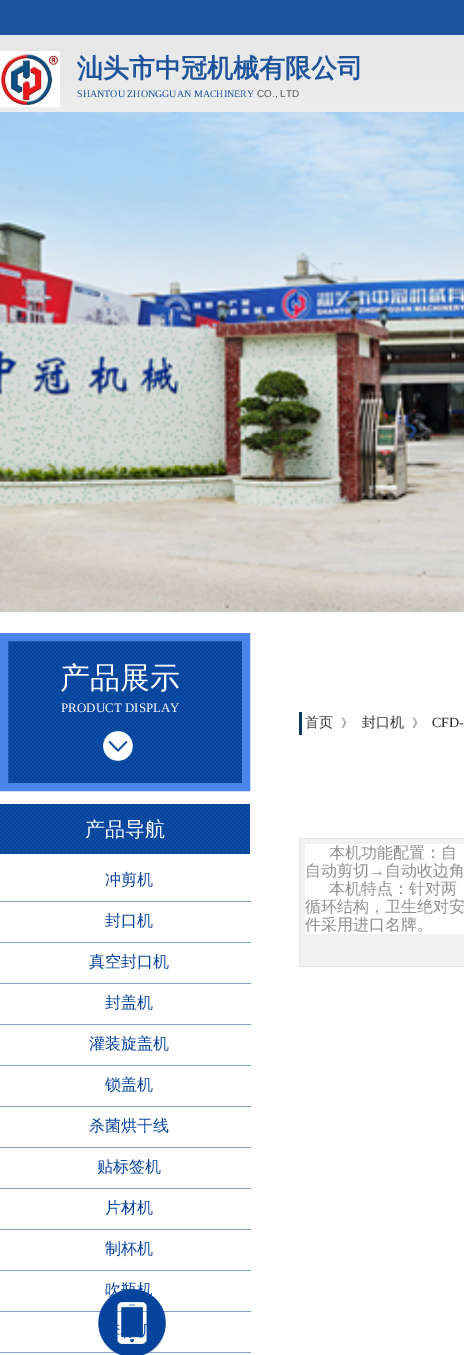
%!PS-Adobe-3.0
%%BoundingBox: 0 0 464 1355
%%LanguageLevel: 3
%%Pages: 1
%%EndComments
%%BeginProlog
/setink { dup -16 bitshift 255 div exch dup -8 bitshift 255 and 255 div exch 255 and 255 div setrgbcolor } def
/usefont { [ exch dup neg 0 0 3 -1 roll 0 0 ] selectfont } def
/drawimage { 5 dict begin { /h /w /y /x /name } { exch def } forall
  gsave x y translate w h scale
  w h 8 [w 0 0 h 0 0] name (r) file false 3 colorimage grestore end } def
%%EndProlog
%%BeginSetup
<< /PageSize [464 1355] >> setpagedevice
%%EndSetup
%%Page: 1 1
0 1355 translate 1 -1 scale
4 setmiterlimit
16#FFFFFF setink
0 0 464 1355 rectfill
(img1.raw) 0 35 464 77 drawimage
16#1E549C setink
0 0 464 35 rectfill
(img2.raw) 0 51 60 56 drawimage
/WenQuanYiZenHei-Bold 26 usefont
77 77 moveto (汕头市中冠机械有限公司) show
/LiberationSerif-Regular 10 usefont
77 97 moveto (SHANTOU ZHONGGUAN MACHINERY) show
/LiberationSans-Regular 10 usefont
16#5A5A5A setink
257 97 moveto (CO., LTD) show
(img3.raw) 0 112 464 500 drawimage
(img4.raw) 8 641 234 142 drawimage
16#4A86E8 setink
8 setlinewidth
4 637 242 150 rectstroke
/WenQuanYiZenHei-Medium 30 usefont
16#FFFFFF setink
60 688 moveto (产品展示) show
/LiberationSerif-Regular 13 usefont
61 712 moveto (PRODUCT DISPLAY) show
(img5.raw) 103 731 30 30 drawimage
16#073763 setink
299 712 3 23 rectfill
/WenQuanYiZenHei-Medium 14 usefont
16#333333 setink
305 727 moveto (首页) show
/WenQuanYiZenHei-Medium 12 usefont
16#5A5A5A setink
341 727 moveto (》) show
/WenQuanYiZenHei-Medium 14 usefont
16#333333 setink
362 727 moveto (封口机) show
/WenQuanYiZenHei-Medium 12 usefont
16#5A5A5A setink
412 727 moveto (》) show
/LiberationSerif-Regular 14 usefont
16#333333 setink
432 727 moveto (CFD-) show
(img6.raw) 0 804 250 50 drawimage
/WenQuanYiZenHei-Medium 20 usefont
16#FFFFFF setink
85 836 moveto (产品导航) show
16#82A2CD setink
0 901 251 1 rectfill
/WenQuanYiZenHei-Medium 16 usefont
16#05449D setink
105 885 moveto (冲剪机) show
16#82A2CD setink
0 942 251 1 rectfill
16#05449D setink
105 926 moveto (封口机) show
16#82A2CD setink
0 983 251 1 rectfill
16#05449D setink
89 967 moveto (真空封口机) show
16#82A2CD setink
0 1024 251 1 rectfill
16#05449D setink
105 1008 moveto (封盖机) show
16#82A2CD setink
0 1065 251 1 rectfill
16#05449D setink
89 1049 moveto (灌装旋盖机) show
16#82A2CD setink
0 1106 251 1 rectfill
16#05449D setink
105 1090 moveto (锁盖机) show
16#82A2CD setink
0 1147 251 1 rectfill
16#05449D setink
89 1131 moveto (杀菌烘干线) show
16#82A2CD setink
0 1188 251 1 rectfill
16#05449D setink
97 1172 moveto (贴标签机) show
16#82A2CD setink
0 1229 251 1 rectfill
16#05449D setink
105 1213 moveto (片材机) show
16#82A2CD setink
0 1270 251 1 rectfill
16#05449D setink
105 1254 moveto (制杯机) show
16#82A2CD setink
0 1311 251 1 rectfill
16#05449D setink
105 1295 moveto (吹瓶机) show
16#82A2CD setink
0 1352 251 1 rectfill
16#F1F1F1 setink
299.5 838.5 moveto 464.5 838.5 lineto 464.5 966.5 lineto 299.5 966.5 lineto closepath gsave fill grestore
16#E5E5E5 setink
1 setlinewidth
stroke
16#FFFFFF setink
305 844 159 90 rectfill
16#8D8D8D setink
329 858 moveto (本机功能配置：自) show
305 876 moveto (自动剪切) show
/LiberationSerif-Regular 16 usefont
369 876 moveto (→) show
/WenQuanYiZenHei-Medium 16 usefont
[
    [(自动收边角) 385 876]
    [(本机特点：针对两) 329 894]
    [(循环结构，卫生绝对安) 305 912]
    [(件采用进口名牌。) 305 930]
] { aload pop moveto show } forall
(img7.raw) 98 1289 68 66 drawimage
showpage
%%EOF
